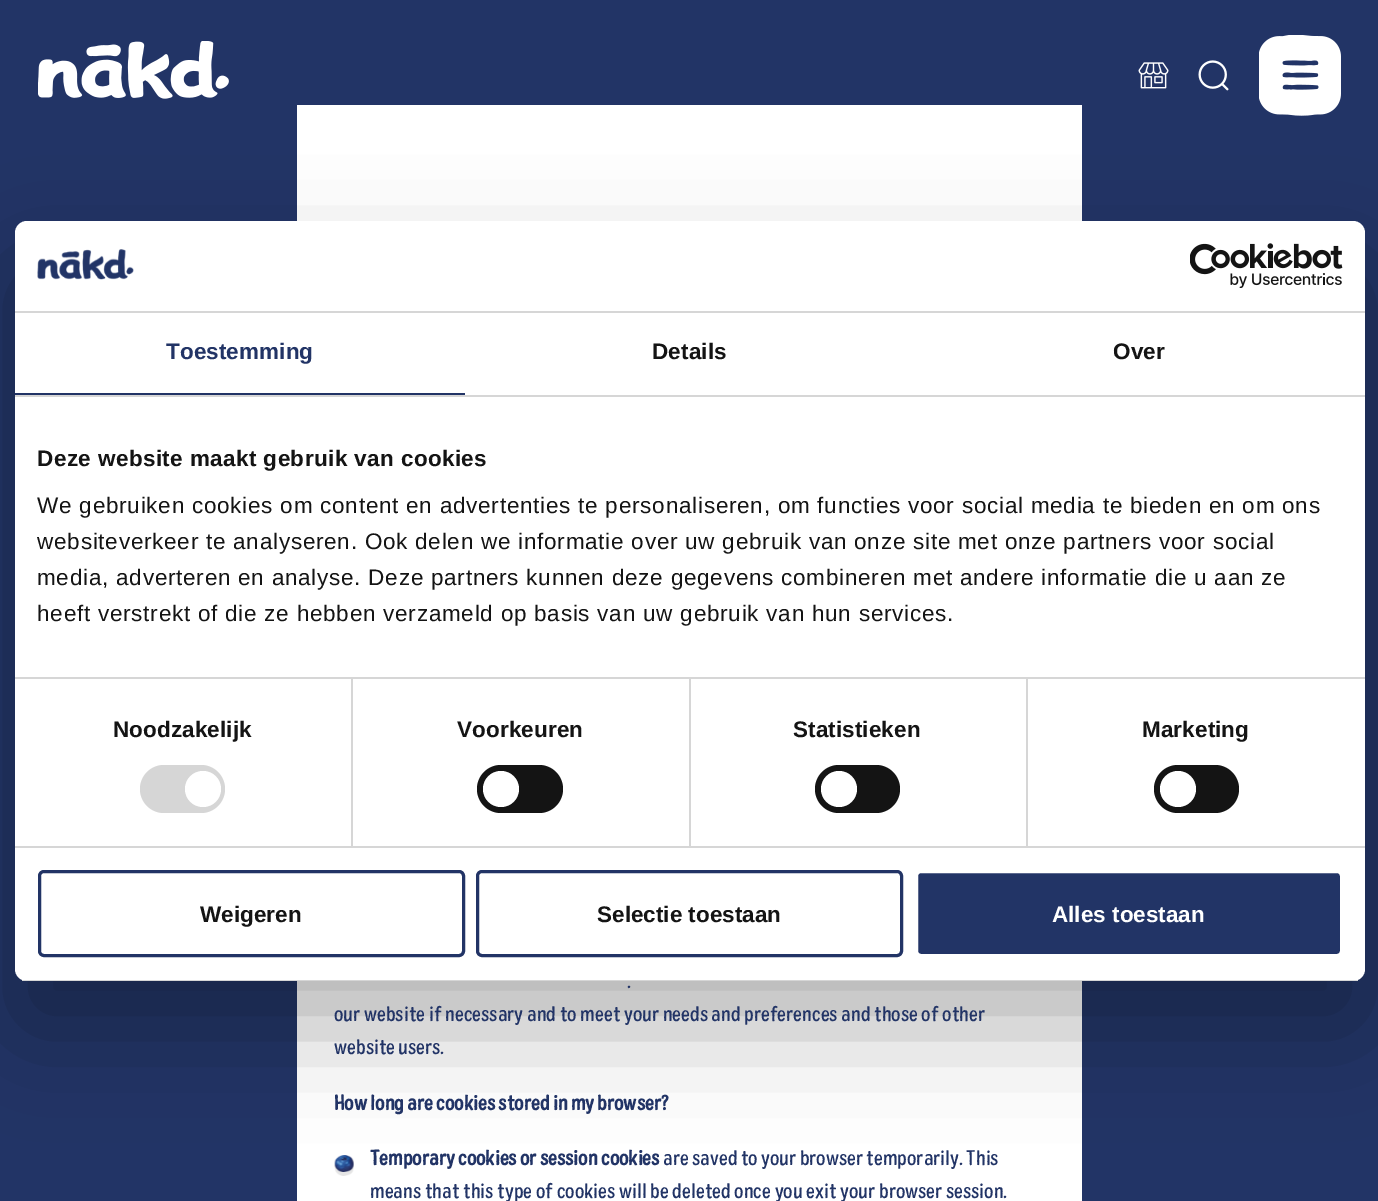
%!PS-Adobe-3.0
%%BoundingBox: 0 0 1378 1201
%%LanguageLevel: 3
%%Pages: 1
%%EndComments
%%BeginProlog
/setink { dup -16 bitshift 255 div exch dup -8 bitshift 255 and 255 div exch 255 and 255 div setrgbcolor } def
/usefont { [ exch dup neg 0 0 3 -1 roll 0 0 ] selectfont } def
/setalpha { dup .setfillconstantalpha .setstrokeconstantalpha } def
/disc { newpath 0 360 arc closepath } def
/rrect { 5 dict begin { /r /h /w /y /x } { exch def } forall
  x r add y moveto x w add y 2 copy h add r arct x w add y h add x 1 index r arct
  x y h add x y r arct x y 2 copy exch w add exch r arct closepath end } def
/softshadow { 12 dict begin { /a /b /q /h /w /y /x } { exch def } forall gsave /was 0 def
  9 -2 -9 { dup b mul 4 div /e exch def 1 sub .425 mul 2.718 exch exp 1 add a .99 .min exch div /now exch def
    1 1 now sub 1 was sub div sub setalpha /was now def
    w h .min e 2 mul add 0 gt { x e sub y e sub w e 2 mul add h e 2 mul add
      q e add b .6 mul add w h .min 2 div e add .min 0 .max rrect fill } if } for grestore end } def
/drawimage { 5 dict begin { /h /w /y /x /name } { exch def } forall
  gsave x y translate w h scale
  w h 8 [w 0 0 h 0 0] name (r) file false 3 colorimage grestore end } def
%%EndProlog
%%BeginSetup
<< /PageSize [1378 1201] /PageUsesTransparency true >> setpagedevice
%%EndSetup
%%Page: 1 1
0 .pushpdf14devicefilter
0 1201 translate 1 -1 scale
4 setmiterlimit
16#223466 setink
0 0 1378 1201 rectfill
(img1.raw) 38 41 191 58 drawimage
(img2.raw) 1138 62 31 27 drawimage
(img3.raw) 1198 60 31 31 drawimage
(img4.raw) 1259 35 82 81 drawimage
(img5.raw) 1282 60 37 30 drawimage
16#FFFFFF setink
297 105 785 1096 rectfill
(img8.raw) 334 1155 20 21 drawimage
16#000000 setink
15 269 1350 760 12 51 0.3 softshadow
16#FFFFFF setink
15 221 1350 760 12 rrect fill
16#D6D6D6 setink
15 311 1350 2 rectfill
(img6.raw) 37 249 97 31 drawimage
(img7.raw) 1190 243 153 45 drawimage
15 395 1350 2 rectfill
16#223466 setink
15 393 450 2 rectfill
/LiberationSans-Bold 22.5 usefont
166 359 moveto 0.1 0 (Toestemming) ashow
16#141414 setink
652 359 moveto 0.1 0 (Details) ashow
1113 359 moveto 0.1 0 (Over) ashow
[
    [351 678 2 168 16#D6D6D6]
    [689 678 2 168 16#D6D6D6]
    [1026 678 2 168 16#D6D6D6]
    [15 677 1350 2 16#D6D6D6]
] { aload pop setink rectfill } forall
16#141414 setink
37 466 moveto 0.4 0 (Deze website maakt gebruik van cookies) ashow
/LiberationSans-Regular 22.5 usefont
37 513 moveto 0.75 0 (We gebruiken cookies om content en advertenties te personaliseren, om functies voor social media te bieden en om ons) ashow
37 549 moveto 0.75 0 (websiteverkeer te analyseren. Ook delen we informatie over uw gebruik van onze site met onze partners voor social) ashow
37 585 moveto 0.75 0 (media, adverteren en analyse. Deze partners kunnen deze gegevens combineren met andere informatie die u aan ze) ashow
37 621 moveto 0.75 0 (heeft verstrekt of die ze hebben verzameld op basis van uw gebruik van hun services.) ashow
16#D6D6D6 setink
15 846 1350 2 rectfill
/LiberationSans-Bold 22.5 usefont
16#141414 setink
113 737 moveto 0.1 0 (Noodzakelijk) ashow
16#D6D6D6 setink
140 765 85 48 24 rrect fill
16#FFFFFF setink
203 789 18 disc fill
16#141414 setink
457 737 moveto 0.1 0 (Voorkeuren) ashow
477 765 86 48 24 rrect fill
16#FFFFFF setink
501 789 18 disc fill
16#141414 setink
793 737 moveto 0.1 0 (Statistieken) ashow
815 765 85 48 24 rrect fill
16#FFFFFF setink
839 789 18 disc fill
16#141414 setink
1142 737 moveto 0.1 0 (Marketing) ashow
1154 765 85 48 24 rrect fill
16#FFFFFF setink
1178 789 18 disc fill
gsave
15 221 1350 760 12 rrect clip newpath
16#D6D6D6 setink
15 980 1350 1 rectfill
grestore
16#223466 setink
3 setlinewidth
39.5 871.5 424 84 4.5 rrect stroke
16#141414 setink
200 922 moveto (Weigeren) show
16#223466 setink
477.5 871.5 424 84 4.5 rrect stroke
16#141414 setink
597 922 moveto (Selectie toestaan) show
16#223466 setink
916.5 871.5 425 84 4.5 rrect gsave fill grestore
16#FFFFFF setink
stroke
1052 922 moveto (Alles toestaan) show
/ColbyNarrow-Regular 21 usefont
16#223466 setink
627 988 moveto (.) show
334 1021 moveto -0.25 0 32 (our website if necessary and to meet your needs and preferences and those of other) widthshow
334 1054 moveto -1 0 32 (website users.) widthshow
/ColbyNarrow-Bold 21 usefont
334 1110 moveto -0.5 0 32 (How long are cookies stored in my browser?) widthshow
370 1165 moveto -0.5 0 32 (Temporary cookies or session cookies) widthshow
/ColbyNarrow-Regular 21 usefont
663 1165 moveto -0.5 0 32 (are saved to your browser temporarily. This) widthshow
370 1198 moveto -0.25 0 32 (means that this type of cookies will be deleted once you exit your browser session.) widthshow
.poppdf14devicefilter showpage
%%EOF
